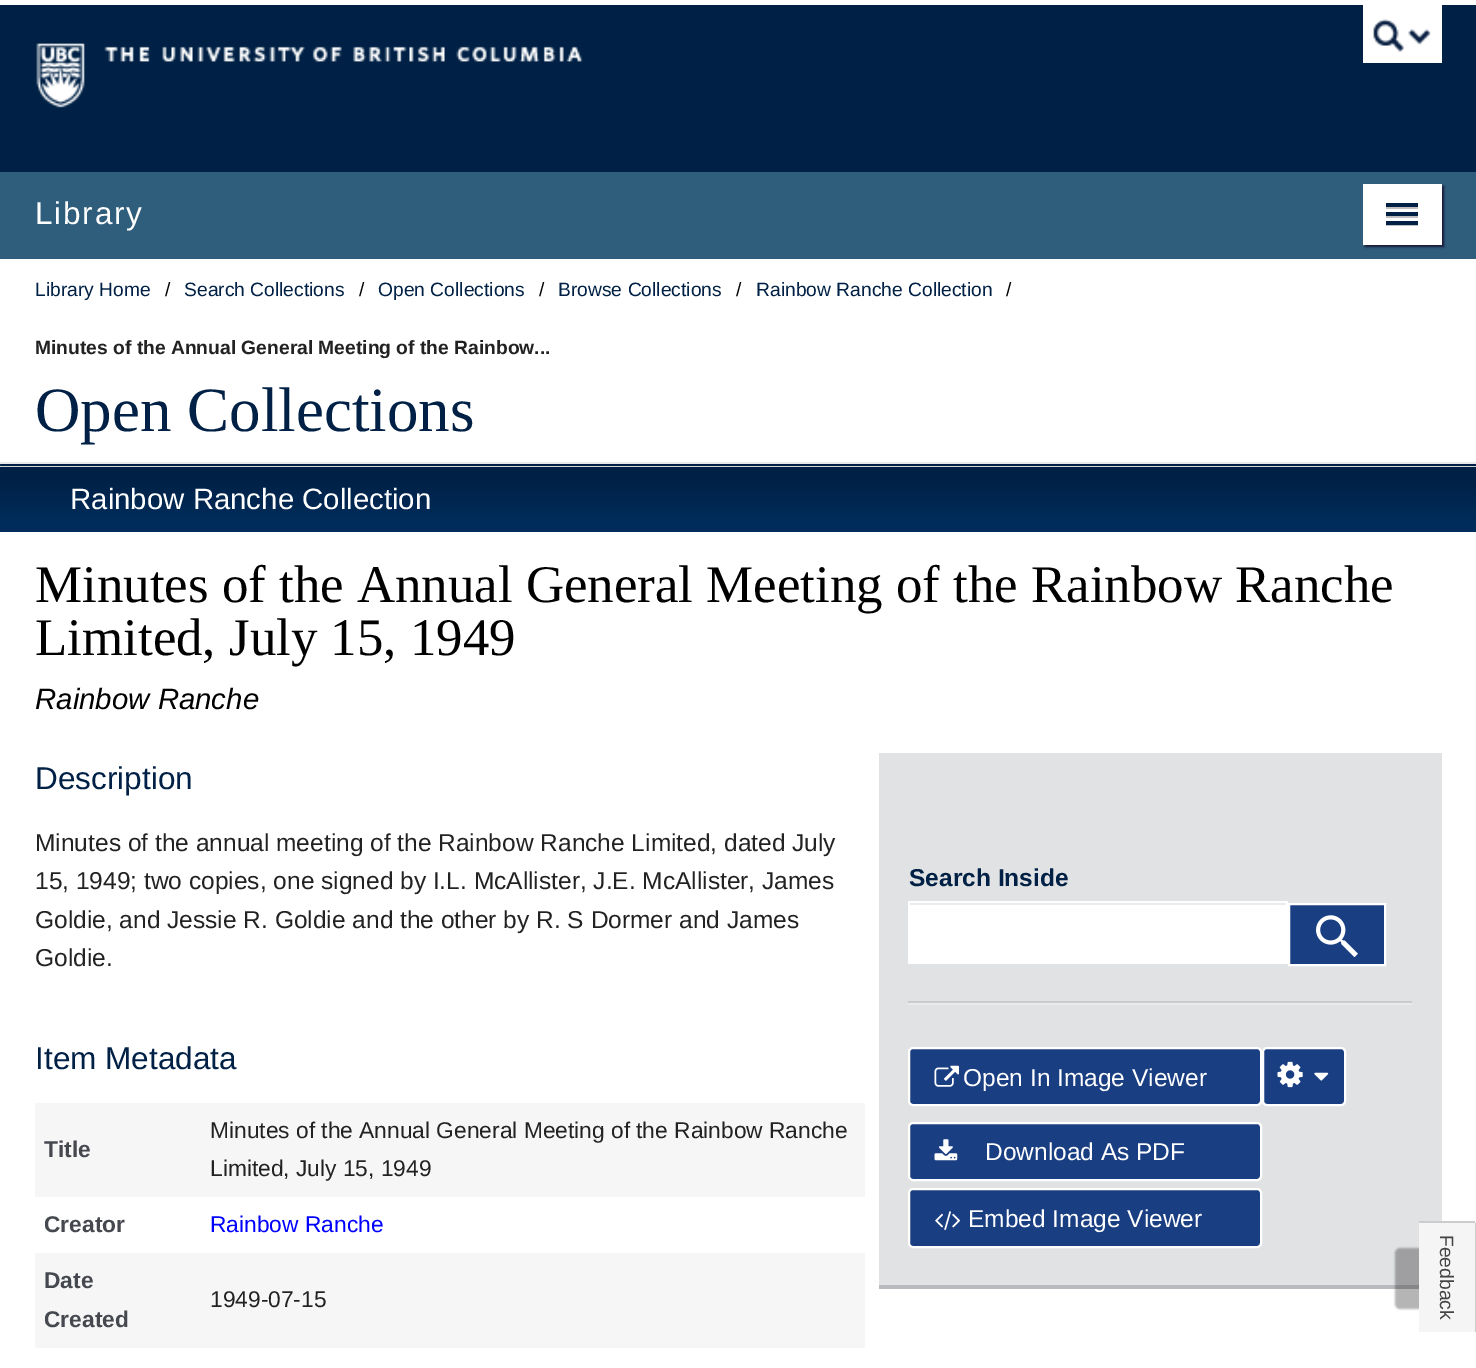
%!PS-Adobe-3.0
%%BoundingBox: 0 0 1476 1368
%%LanguageLevel: 3
%%Pages: 1
%%EndComments
%%BeginProlog
/setink { dup -16 bitshift 255 div exch dup -8 bitshift 255 and 255 div exch 255 and 255 div setrgbcolor } def
/usefont { [ exch dup neg 0 0 3 -1 roll 0 0 ] selectfont } def
/setalpha { dup .setfillconstantalpha .setstrokeconstantalpha } def
/rrect { 5 dict begin { /r /h /w /y /x } { exch def } forall
  x r add y moveto x w add y 2 copy h add r arct x w add y h add x 1 index r arct
  x y h add x y r arct x y 2 copy exch w add exch r arct closepath end } def
/softshadow { 12 dict begin { /a /b /q /h /w /y /x } { exch def } forall gsave /was 0 def
  9 -2 -9 { dup b mul 4 div /e exch def 1 sub .425 mul 2.718 exch exp 1 add a .99 .min exch div /now exch def
    1 1 now sub 1 was sub div sub setalpha /was now def
    w h .min e 2 mul add 0 gt { x e sub y e sub w e 2 mul add h e 2 mul add
      q e add b .6 mul add w h .min 2 div e add .min 0 .max rrect fill } if } for grestore end } def
/drawimage { 5 dict begin { /h /w /y /x /name } { exch def } forall
  gsave x y translate w h scale
  w h 8 [w 0 0 h 0 0] name (r) file false 3 colorimage grestore end } def
%%EndProlog
%%BeginSetup
<< /PageSize [1476 1368] /PageUsesTransparency true >> setpagedevice
%%EndSetup
%%Page: 1 1
0 .pushpdf14devicefilter
0 1368 translate 1 -1 scale
4 setmiterlimit
16#FFFFFF setink
0 0 1476 1368 rectfill
16#002145 setink
0 5 1476 167 rectfill
(img1.raw) 36 43 547 65 drawimage
16#FFFFFF setink
1363 5 79 58 rectfill
(img2.raw) 1373 19 58 34 drawimage
16#2F5D7C setink
0 172 1476 87 rectfill
/LiberationSans-Regular 31.5 usefont
16#FFFFFF setink
35 224 moveto 1.75 0 (Library) ashow
16#191938 setink
1365 186 79 61 0 1 1 softshadow
16#FFFFFF setink
1363 184 79 61 rectfill
16#BFBFBF setink
1386 206.5 moveto 1386 209 lineto 1418 209 lineto 1418 205 lineto 1417.5 205 lineto 1417.5 206.5 lineto closepath fill
16#002145 setink
1386 203 32 4 rectfill
16#BFBFBF setink
1386 215 moveto 1386 218 lineto 1418 218 lineto 1418 214 lineto 1417.5 214 lineto 1417.5 215 lineto closepath fill
16#002145 setink
1386 212 32 4 rectfill
16#BFBFBF setink
1386 224 moveto 1386 226 lineto 1418 226 lineto 1418 222 lineto 1417.5 222 lineto 1417.5 224 lineto closepath fill
16#002145 setink
1386 221 32 4 rectfill
/LiberationSans-Regular 19.25 usefont
35 296 moveto (Library Home) show
16#000000 setink
165 296 moveto (/) show
16#002145 setink
184 296 moveto (Search Collections) show
16#000000 setink
359 296 moveto (/) show
16#002145 setink
378 296 moveto (Open Collections) show
16#000000 setink
539 296 moveto (/) show
16#002145 setink
558 296 moveto (Browse Collections) show
16#000000 setink
736 296 moveto (/) show
16#002145 setink
756 296 moveto (Rainbow Ranche Collection) show
16#000000 setink
1006 296 moveto (/) show
/LiberationSans-Bold 19.25 usefont
16#222222 setink
35 354 moveto (Minutes of the Annual General Meeting of the Rainbow...) show
/LiberationSerif-Regular 63 usefont
16#002145 setink
35 431 moveto (Open Collections) show
0 464 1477 2 1 rrect fill
16#E9E9EB setink
0 462 1476 2 rectfill
16#D3D5D8 setink
0 466 1476 1 rectfill
gsave 0 467 moveto 1476 467 lineto 1476 532 lineto 0 532 lineto closepath clip newpath
<< /ShadingType 2 /ColorSpace /DeviceRGB /Coords [739 467 739 532] /Extend [true true] /Function << /FunctionType 3 /Domain [0 1] /Functions [<< /FunctionType 2 /Domain [0 1] /C0 [0 0.129 0.271] /C1 [0 0.129 0.271] /N 1 >> << /FunctionType 2 /Domain [0 1] /C0 [0 0.129 0.271] /C1 [0 0.173 0.357] /N 1 >> << /FunctionType 2 /Domain [0 1] /C0 [0 0.173 0.357] /C1 [0 0.173 0.357] /N 1 >>] /Bounds [0.15 0.85] /Encode [0 1 0 1 0 1] >> >> shfill grestore
/LiberationSans-Regular 29.4 usefont
16#FFFFFF setink
70 509 moveto (Rainbow Ranche Collection) show
/LiberationSerif-Regular 52.9 usefont
16#000000 setink
35 602 moveto (Minutes of the Annual General Meeting of the Rainbow Ranche) show
35 655 moveto (Limited, July 15, 1949) show
/LiberationSans-Italic 29.4 usefont
35 709 moveto (Rainbow Ranche) show
/LiberationSans-Regular 31.5 usefont
16#002145 setink
35 789 moveto (Description) show
/LiberationSans-Regular 24.5 usefont
16#222222 setink
[
    [(Minutes of the annual meeting of the Rainbow Ranche Limited, dated July) 35 851]
    [(15, 1949; two copies, one signed by I.L. McAllister, J.E. McAllister, James) 35 889]
    [(Goldie, and Jessie R. Goldie and the other by R. S Dormer and James) 35 928]
    [(Goldie.) 35 966]
] { aload pop moveto show } forall
/LiberationSans-Regular 31.5 usefont
16#002145 setink
35 1069 moveto (Item Metadata) show
16#F6F6F7 setink
35 1103 830 94 rectfill
/LiberationSans-Bold 22.75 usefont
16#45484E setink
44 1157 moveto (Title) show
/LiberationSans-Regular 22.75 usefont
16#222222 setink
210 1138 moveto (Minutes of the Annual General Meeting of the Rainbow Ranche) show
210 1176 moveto (Limited, July 15, 1949) show
/LiberationSans-Bold 22.75 usefont
16#45484E setink
44 1232 moveto (Creator) show
/LiberationSans-Regular 22.75 usefont
16#0000FF setink
210 1232 moveto (Rainbow Ranche) show
16#F6F6F7 setink
35 1253 830 95 rectfill
/LiberationSans-Bold 22.75 usefont
16#45484E setink
44 1288 moveto (Date) show
44 1327 moveto (Created) show
/LiberationSans-Regular 22.75 usefont
16#222222 setink
210 1307 moveto (1949-07-15) show
16#E1E2E4 setink
879 753 563 532 rectfill
16#B8BAC0 setink
879 1285 540 4 rectfill
/LiberationSans-Bold 24.5 usefont
16#002145 setink
909 886 moveto (Search Inside) show
16#FFFFFF setink
908 901 380 63 rectfill
16#ECECEC setink
910 903 376 2 rectfill
16#1A3E82 setink
1289 904 moveto 1385 904 lineto 1385 965 lineto 1289 965 lineto closepath gsave fill grestore
16#FFFFFF setink
2 setlinewidth
stroke
(img3.raw) 1316 915 42 42 drawimage
16#CBCBCD setink
908 1001 504 2 rectfill
16#EAEBEC setink
908 1003 504 2 rectfill
16#1A3E82 setink
909 1048 352 57 4 rrect gsave fill grestore
16#FFFFFF setink
stroke
(img4.raw) 934 1065 25 22 drawimage
/LiberationSans-Regular 24.5 usefont
963 1086 moveto (Open In Image Viewer) show
16#1A3E82 setink
1263 1048 82 57 4 rrect gsave fill grestore
16#FFFFFF setink
stroke
(img5.raw) 1277 1061 26 27 drawimage
(img6.raw) 1314 1072 15 9 drawimage
16#1A3E82 setink
909 1123 352 57 4 rrect gsave fill grestore
16#FFFFFF setink
stroke
(img7.raw) 934 1139 24 22 drawimage
985 1160 moveto (Download As PDF) show
16#1A3E82 setink
909 1189 352 58 4 rrect gsave fill grestore
16#FFFFFF setink
stroke
(img8.raw) 935 1211 26 19 drawimage
968 1227 moveto (Embed Image Viewer) show
16#000000 setink
1395 1248 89 61 5 1 0.3 softshadow
16#F5F5F5 setink
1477 1224 moveto 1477 1332 lineto 1419 1332 lineto 1419 1221 lineto 1474 1221 lineto 1475 1221 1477 1223 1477 1224 curveto closepath fill
16#CCCCCC setink
1475 1223 1 109 rectfill
1419 1221 56 2 rectfill
/LiberationSans-Regular 19.25 usefont
16#444444 setink
gsave 1440 1235 translate 90 rotate 0 0 moveto (Feedback) show grestore
.poppdf14devicefilter showpage
%%EOF
